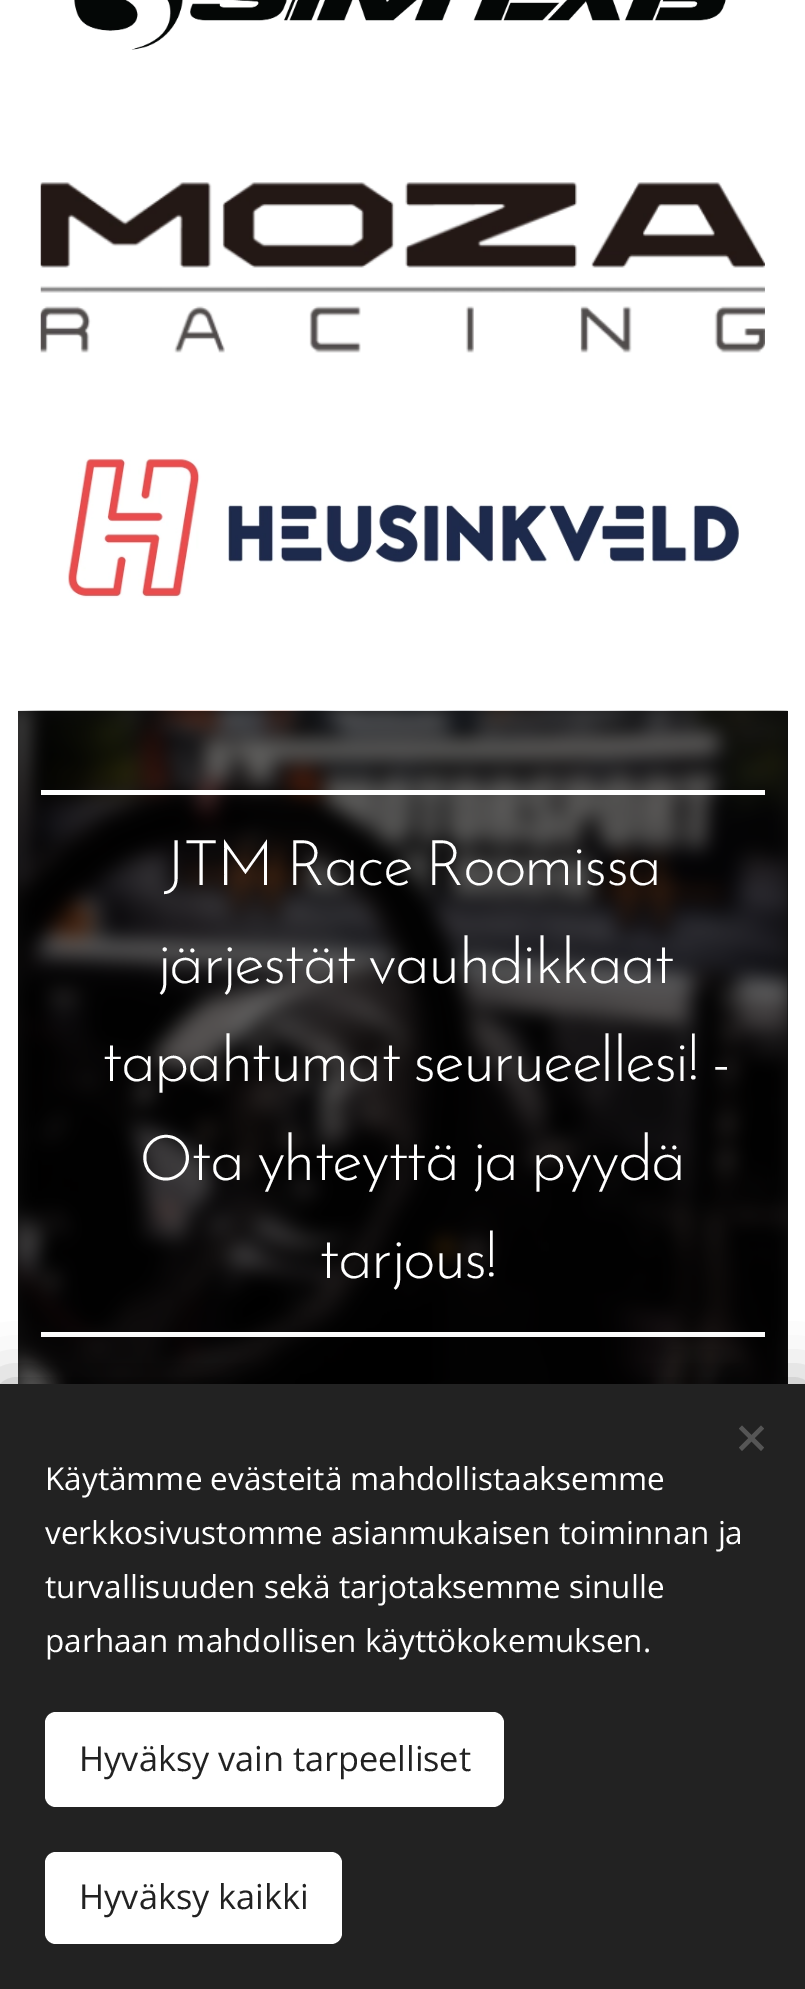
%!PS-Adobe-3.0
%%BoundingBox: 0 0 805 1989
%%LanguageLevel: 3
%%Pages: 1
%%EndComments
%%BeginProlog
/setink { dup -16 bitshift 255 div exch dup -8 bitshift 255 and 255 div exch 255 and 255 div setrgbcolor } def
/usefont { [ exch dup neg 0 0 3 -1 roll 0 0 ] selectfont } def
/setalpha { dup .setfillconstantalpha .setstrokeconstantalpha } def
/rrect { 5 dict begin { /r /h /w /y /x } { exch def } forall
  x r add y moveto x w add y 2 copy h add r arct x w add y h add x 1 index r arct
  x y h add x y r arct x y 2 copy exch w add exch r arct closepath end } def
/softshadow { 12 dict begin { /a /b /q /h /w /y /x } { exch def } forall gsave /was 0 def
  9 -2 -9 { dup b mul 4 div /e exch def 1 sub .425 mul 2.718 exch exp 1 add a .99 .min exch div /now exch def
    1 1 now sub 1 was sub div sub setalpha /was now def
    w h .min e 2 mul add 0 gt { x e sub y e sub w e 2 mul add h e 2 mul add
      q e add b .6 mul add w h .min 2 div e add .min 0 .max rrect fill } if } for grestore end } def
/drawimage { 5 dict begin { /h /w /y /x /name } { exch def } forall
  gsave x y translate w h scale
  w h 8 [w 0 0 h 0 0] name (r) file false 3 colorimage grestore end } def
%%EndProlog
%%BeginSetup
<< /PageSize [805 1989] /PageUsesTransparency true >> setpagedevice
%%EndSetup
%%Page: 1 1
0 .pushpdf14devicefilter
0 1989 translate 1 -1 scale
4 setmiterlimit
16#FFFFFF setink
0 0 805 1989 rectfill
(img1.raw) 74 0 652 50 drawimage
(img2.raw) 40 182 725 171 drawimage
(img3.raw) 67 458 672 140 drawimage
16#101010 setink
18 711 770 673 rectfill
(img4.raw) 18 710 770 674 drawimage
16#FFFFFF setink
41 790 724 5 rectfill
41 1332 724 5 rectfill
/JosefinSans-Light 63 usefont
164 885 moveto -4 0 32 -1.9 0 (JTM Race Roomissa) awidthshow
157 983 moveto -4 0 32 -1.9 0 (järjestät vauhdikkaat) awidthshow
102 1081 moveto -4 0 32 -1.9 0 (tapahtumat seurueellesi! -) awidthshow
139 1180 moveto -4 0 32 -1.9 0 (Ota yhteyttä ja pyydä) awidthshow
319 1278 moveto -1.9 0 (tarjous!) ashow
16#000000 setink
0 1384 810 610 0 28 0.33 softshadow
16#222222 setink
0 1384 805 605 rectfill
16#555555 setink
739 1447.5 moveto 761 1425.5 lineto 764 1428.5 lineto 742 1451 lineto closepath fill
742 1425.5 moveto 764 1447.5 lineto 761 1451 lineto 739 1428.5 lineto closepath fill
/OpenSans-Regular 31.5 usefont
16#FFFFFF setink
[
    [(Käytämme evästeitä mahdollistaaksemme) 45 1490]
    [(verkkosivustomme asianmukaisen toiminnan ja) 45 1544]
    [(turvallisuuden sekä tarjotaksemme sinulle) 45 1598]
    [(parhaan mahdollisen käyttökokemuksen.) 45 1652]
] { aload pop moveto show } forall
45 1712 459 95 11 rrect fill
/OpenSans-Regular 34.25 usefont
16#222222 setink
79 1771 moveto (Hyväksy vain tarpeelliset) show
16#FFFFFF setink
45 1852 297 92 11 rrect fill
16#222222 setink
79 1909 moveto (Hyväksy kaikki) show
.poppdf14devicefilter showpage
%%EOF
